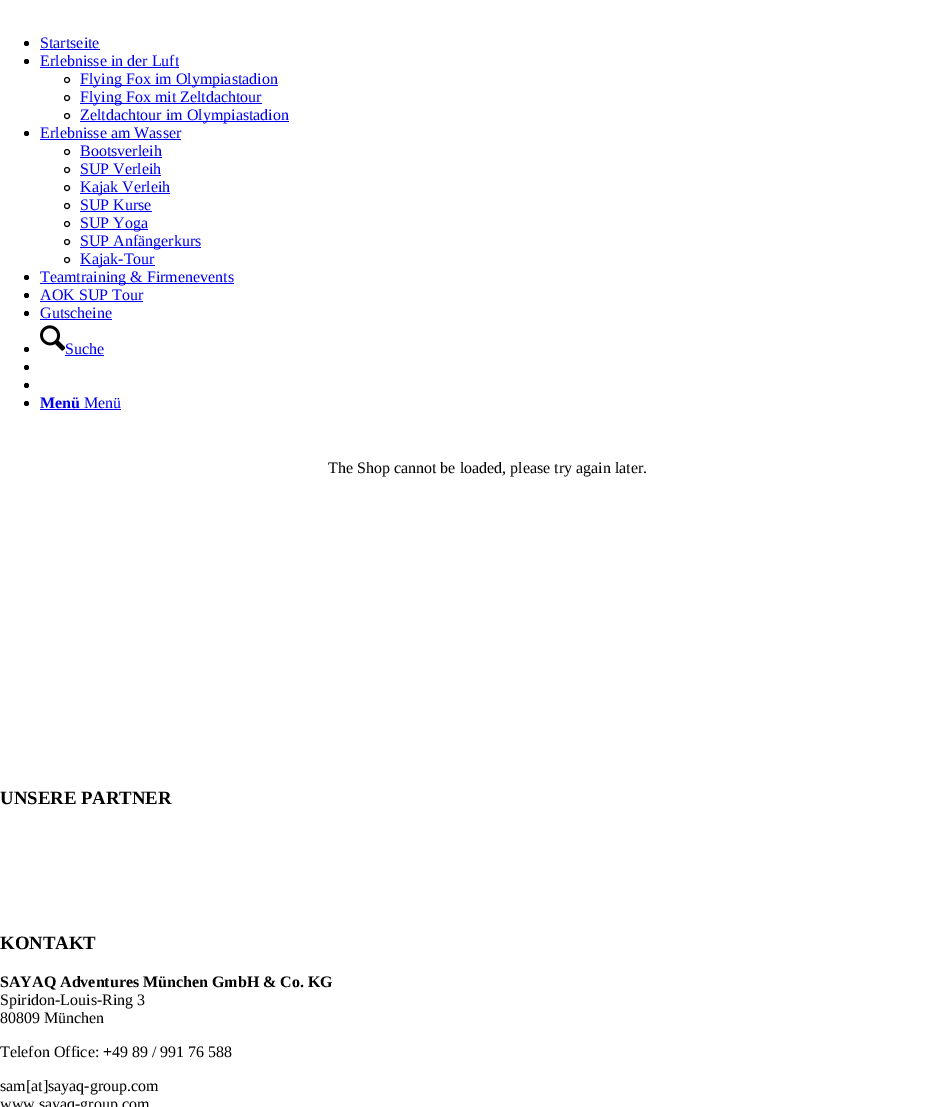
%!PS-Adobe-3.0
%%BoundingBox: 0 0 935 1107
%%LanguageLevel: 3
%%Pages: 1
%%EndComments
%%BeginProlog
/setink { dup -16 bitshift 255 div exch dup -8 bitshift 255 and 255 div exch 255 and 255 div setrgbcolor } def
/usefont { [ exch dup neg 0 0 3 -1 roll 0 0 ] selectfont } def
/disc { newpath 0 360 arc closepath } def
/drawimage { 5 dict begin { /h /w /y /x /name } { exch def } forall
  gsave x y translate w h scale
  w h 8 [w 0 0 h 0 0] name (r) file false 3 colorimage grestore end } def
%%EndProlog
%%BeginSetup
<< /PageSize [935 1107] >> setpagedevice
%%EndSetup
%%Page: 1 1
0 1107 translate 1 -1 scale
4 setmiterlimit
16#FFFFFF setink
0 0 935 1107 rectfill
16#000000 setink
26.5 43.5 2.5 disc fill
/LiberationSerif-Regular 16 usefont
16#0000EE setink
40 48 moveto (Startseite) show
40 49 60 1 rectfill
16#000000 setink
26.5 61.5 2.5 disc fill
16#0000EE setink
40 66 moveto (Erlebnisse in der Luft) show
40 67 139 1 rectfill
16#000000 setink
67 80 2.5 disc stroke
16#0000EE setink
80 85 198 1 rectfill
80 84 moveto (Flying Fox im Olympiastadion) show
16#000000 setink
67 98 2.5 disc stroke
16#0000EE setink
80 103 182 1 rectfill
80 102 moveto (Flying Fox mit Zeltdachtour) show
16#000000 setink
67 116 2.5 disc stroke
16#0000EE setink
80 121 209 1 rectfill
80 120 moveto (Zeltdachtour im Olympiastadion) show
16#000000 setink
26.5 133.5 2.5 disc fill
16#0000EE setink
40 138 moveto (Erlebnisse am Wasser) show
40 139 141 1 rectfill
16#000000 setink
67 152 2.5 disc stroke
16#0000EE setink
80 156 moveto (Bootsverleih) show
80 157 82 1 rectfill
16#000000 setink
67 170 2.5 disc stroke
16#0000EE setink
80 174 moveto (SUP Verleih) show
80 175 81 1 rectfill
16#000000 setink
67 188 2.5 disc stroke
16#0000EE setink
80 193 90 1 rectfill
80 192 moveto (Kajak Verleih) show
16#000000 setink
67 206 2.5 disc stroke
16#0000EE setink
80 210 moveto (SUP Kurse) show
80 211 72 1 rectfill
16#000000 setink
67 224 2.5 disc stroke
16#0000EE setink
80 229 68 1 rectfill
80 228 moveto (SUP Yoga) show
16#000000 setink
67 242 2.5 disc stroke
16#0000EE setink
80 247 121 1 rectfill
80 246 moveto (SUP Anfängerkurs) show
16#000000 setink
67 260 2.5 disc stroke
16#0000EE setink
80 265 75 1 rectfill
80 264 moveto (Kajak-Tour) show
16#000000 setink
26.5 277.5 2.5 disc fill
16#0000EE setink
40 283 194 1 rectfill
40 282 moveto (Teamtraining & Firmenevents) show
16#000000 setink
26.5 295.5 2.5 disc fill
16#0000EE setink
40 300 moveto (AOK SUP Tour) show
40 301 103 1 rectfill
16#000000 setink
26.5 313.5 2.5 disc fill
16#0000EE setink
40 318 moveto (Gutscheine) show
40 319 72 1 rectfill
16#000000 setink
26.5 349.5 2.5 disc fill
(img1.raw) 40 325 25 26 drawimage
16#0000EE setink
65 354 moveto (Suche) show
65 355 39 1 rectfill
16#000000 setink
26.5 367.5 2.5 disc fill
26.5 385.5 2.5 disc fill
26.5 403.5 2.5 disc fill
/LiberationSerif-Bold 16 usefont
16#0000EE setink
40 408 moveto (Menü) show
40 409 81 1 rectfill
/LiberationSerif-Regular 16 usefont
84 408 moveto (Menü) show
16#000000 setink
328 473 moveto (The Shop cannot be loaded, please try again later.) show
/LiberationSerif-Bold 18.75 usefont
0 804 moveto (UNSERE PARTNER) show
0 949 moveto (KONTAKT) show
/LiberationSerif-Bold 16 usefont
0 987 moveto (SAYAQ Adventures München GmbH & Co. KG) show
/LiberationSerif-Regular 16 usefont
[
    [(Spiridon-Louis-Ring 3) 0 1005]
    [(80809 München) 0 1023]
    [(Telefon Office:) 0 1057]
] { aload pop moveto show } forall
/LiberationSerif-Bold 16 usefont
103 1057 moveto (+) show
/LiberationSerif-Regular 16 usefont
[
    [(49 89 / 991 76 588) 112 1057]
    [(sam[at]sayaq-group.com) 0 1091]
    [(www.sayaq-group.com) 0 1109]
] { aload pop moveto show } forall
showpage
%%EOF
